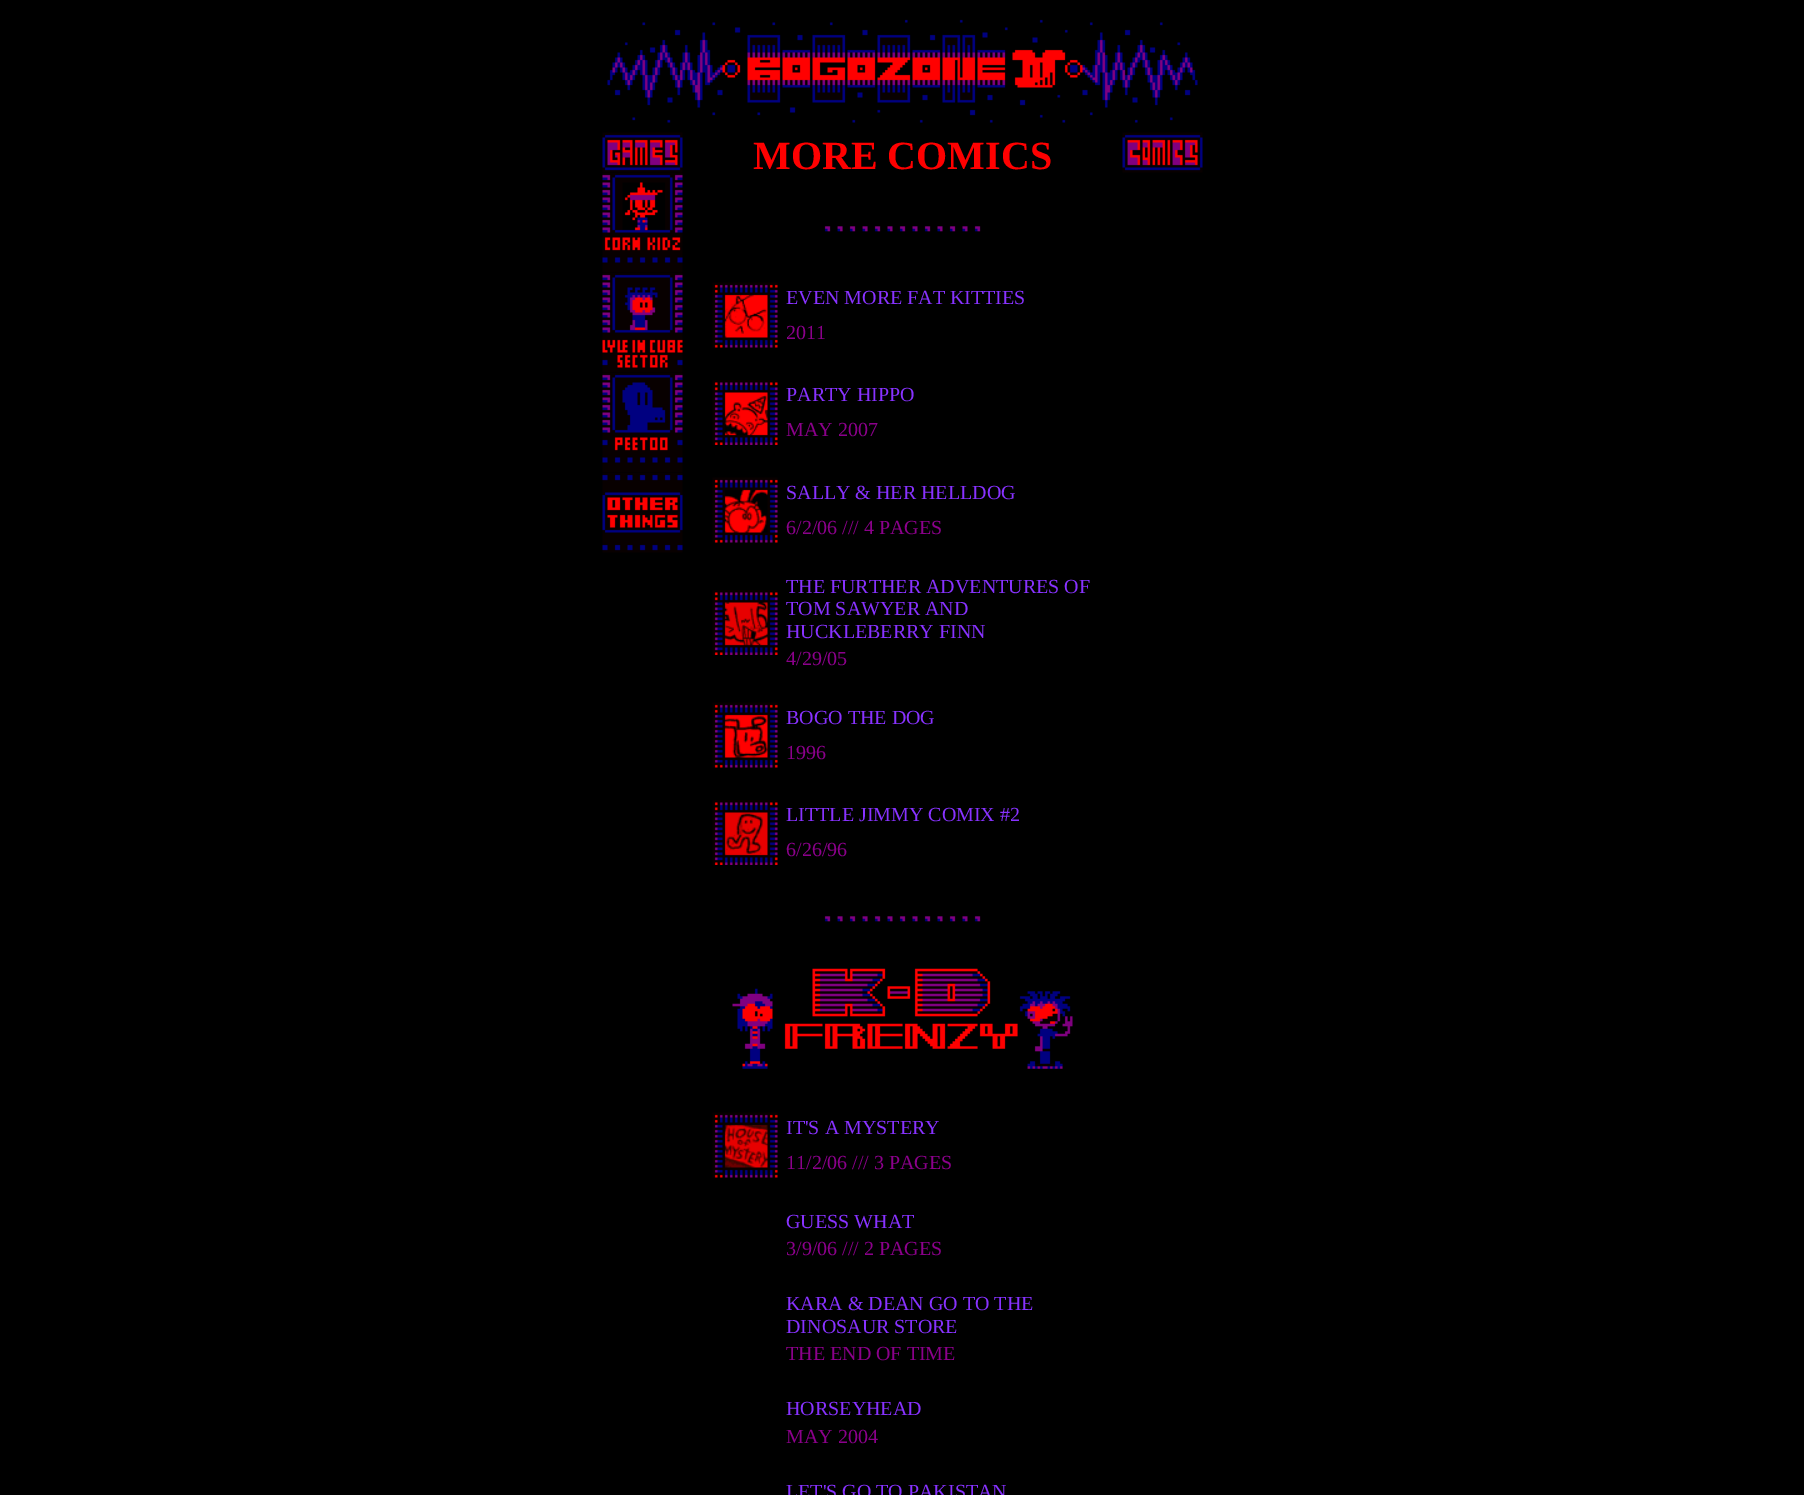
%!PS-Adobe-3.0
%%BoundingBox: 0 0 1804 1495
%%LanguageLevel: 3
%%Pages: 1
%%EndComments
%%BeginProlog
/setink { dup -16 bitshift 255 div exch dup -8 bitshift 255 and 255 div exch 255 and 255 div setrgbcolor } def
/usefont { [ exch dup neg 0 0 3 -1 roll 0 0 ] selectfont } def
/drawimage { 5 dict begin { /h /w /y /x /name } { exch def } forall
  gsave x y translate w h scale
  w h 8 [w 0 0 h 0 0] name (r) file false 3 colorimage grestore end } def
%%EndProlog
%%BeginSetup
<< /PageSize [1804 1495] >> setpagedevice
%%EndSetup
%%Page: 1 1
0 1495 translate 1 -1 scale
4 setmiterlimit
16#000000 setink
0 0 1804 1495 rectfill
(img1.raw) 607 19 591 104 drawimage
(img2.raw) 602 132 81 41 drawimage
(img3.raw) 602 173 81 100 drawimage
(img4.raw) 602 273 81 100 drawimage
(img5.raw) 602 373 81 100 drawimage
(img6.raw) 602 473 81 80 drawimage
/LiberationSerif-Bold 40 usefont
16#FF0000 setink
753 169 moveto (MORE COMICS) show
(img7.raw) 824 226 157 6 drawimage
(img8.raw) 712 282 66 66 drawimage
/LiberationSerif-Regular 20 usefont
16#8832FF setink
786 304 moveto (EVEN MORE FAT KITTIES) show
16#8B008B setink
786 339 moveto (2011) show
(img9.raw) 712 380 66 65 drawimage
16#8832FF setink
786 401 moveto (PARTY HIPPO) show
16#8B008B setink
786 436 moveto (MAY 2007) show
(img10.raw) 712 477 66 66 drawimage
16#8832FF setink
786 499 moveto (SALLY & HER HELLDOG) show
16#8B008B setink
786 534 moveto (6/2/06 /// 4 PAGES) show
(img11.raw) 712 590 66 65 drawimage
16#8832FF setink
[
    [(THE FURTHER ADVENTURES OF) 786 593]
    [(TOM SAWYER AND) 786 615]
    [(HUCKLEBERRY FINN) 786 638]
] { aload pop moveto show } forall
16#8B008B setink
786 665 moveto (4/29/05) show
(img12.raw) 712 702 66 66 drawimage
16#8832FF setink
786 724 moveto (BOGO THE DOG) show
16#8B008B setink
786 759 moveto (1996) show
(img13.raw) 712 800 66 65 drawimage
16#8832FF setink
786 821 moveto (LITTLE JIMMY COMIX #2) show
16#8B008B setink
786 856 moveto (6/26/96) show
(img7.raw) 824 916 157 6 drawimage
(img14.raw) 732 968 341 101 drawimage
(img15.raw) 712 1112 66 66 drawimage
16#8832FF setink
786 1134 moveto (IT'S A MYSTERY) show
16#8B008B setink
786 1169 moveto (11/2/06 /// 3 PAGES) show
16#8832FF setink
786 1228 moveto (GUESS WHAT) show
16#8B008B setink
786 1255 moveto (3/9/06 /// 2 PAGES) show
16#8832FF setink
786 1310 moveto (KARA & DEAN GO TO THE) show
786 1333 moveto (DINOSAUR STORE) show
16#8B008B setink
786 1360 moveto (THE END OF TIME) show
16#8832FF setink
786 1415 moveto (HORSEYHEAD) show
16#8B008B setink
786 1443 moveto (MAY 2004) show
16#8832FF setink
786 1498 moveto (LET'S GO TO PAKISTAN) show
(img16.raw) 1122 132 81 41 drawimage
showpage
%%EOF
